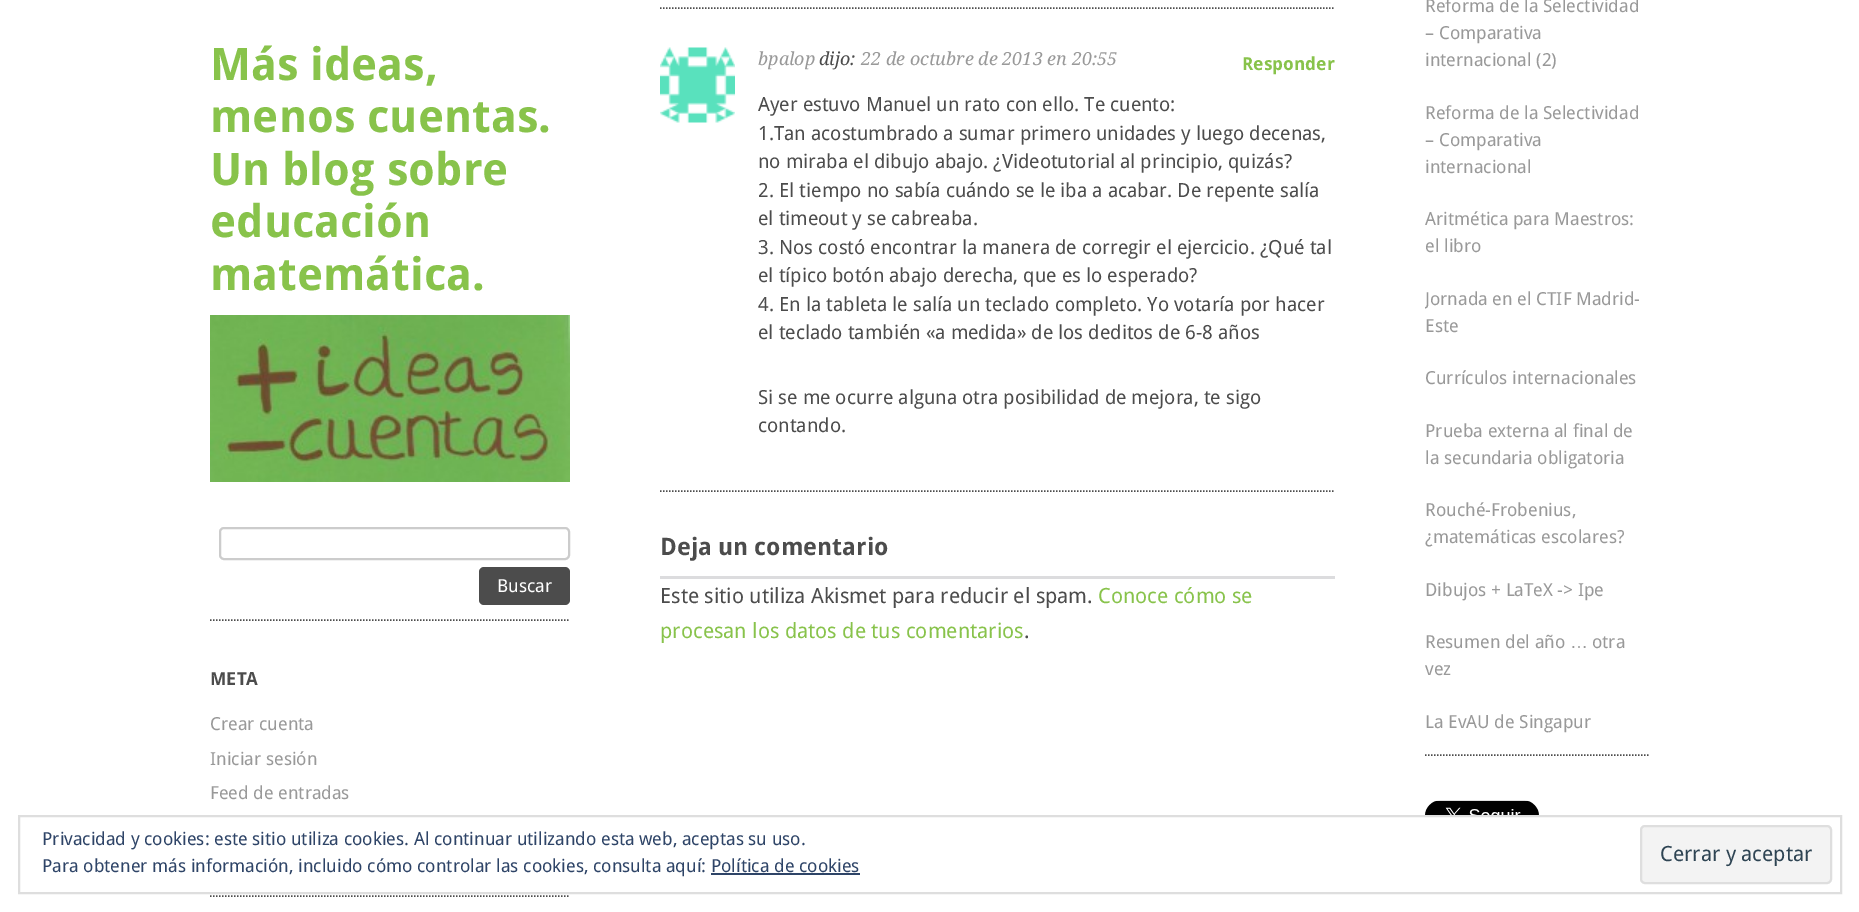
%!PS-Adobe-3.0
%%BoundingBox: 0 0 1859 912
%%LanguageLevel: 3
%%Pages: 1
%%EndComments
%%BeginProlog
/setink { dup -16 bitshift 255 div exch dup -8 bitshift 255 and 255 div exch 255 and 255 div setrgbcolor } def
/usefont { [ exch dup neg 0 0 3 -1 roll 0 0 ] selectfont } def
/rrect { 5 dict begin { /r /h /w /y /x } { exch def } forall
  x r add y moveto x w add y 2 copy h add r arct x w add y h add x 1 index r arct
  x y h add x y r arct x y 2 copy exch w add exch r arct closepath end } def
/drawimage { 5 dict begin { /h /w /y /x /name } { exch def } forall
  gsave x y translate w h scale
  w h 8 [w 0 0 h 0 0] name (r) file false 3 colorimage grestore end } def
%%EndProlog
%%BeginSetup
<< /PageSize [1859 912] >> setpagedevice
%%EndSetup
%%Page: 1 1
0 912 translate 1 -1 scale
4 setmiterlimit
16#FFFFFF setink
0 0 1859 912 rectfill
/DroidSans-Bold 45 usefont
16#88C34B setink
[
    [(Más ideas,) 210 80]
    [(menos cuentas.) 210 132]
    [(Un blog sobre) 210 185]
    [(educación) 210 237]
    [(matemática.) 210 290]
] { aload pop moveto show } forall
(img1.raw) 210 315 360 167 drawimage
16#4C4C4C setink
1.5 setlinewidth
[1.5 1.5] 0 setdash
210 620 moveto 570 620 lineto stroke
16#CCCCCC setink
2 setlinewidth
[] 0 setdash
220 528 349 31 4 rrect stroke
16#4C4C4C setink
479 567 91 38 5 rrect fill
/DroidSans-Regular 18 usefont
16#FFFFFF setink
497 592 moveto (Buscar) show
16#4C4C4C setink
1.5 setlinewidth
[1.5 1.5] 0 setdash
210 896 moveto 570 896 lineto stroke
/DroidSans-Bold 18 usefont
210 685 moveto (META) show
/DroidSans-Regular 18 usefont
16#999999 setink
[
    [(Crear cuenta) 210 730]
    [(Iniciar sesión) 210 765]
    [(Feed de entradas) 210 799]
] { aload pop moveto show } forall
16#4C4C4C setink
660 8 moveto 1335 8 lineto stroke
660 491 moveto 1335 491 lineto stroke
(img2.raw) 660 47 75 76 drawimage
/DroidSerif-Italic 18 usefont
16#999999 setink
758 65 moveto (bpalop) show
16#4C4C4C setink
819 65 moveto (dijo:) show
16#999999 setink
861 65 moveto (22 de octubre de 2013 en 20:55) show
/DroidSans-Bold 18 usefont
16#88C34B setink
1242 70 moveto (Responder) show
/DroidSans-Regular 19.5 usefont
16#4C4C4C setink
[
    [(Ayer estuvo Manuel un rato con ello. Te cuento:) 758 111]
    [(1.Tan acostumbrado a sumar primero unidades y luego decenas,) 758 140]
    [(no miraba el dibujo abajo. ¿Videotutorial al principio, quizás?) 758 168]
    [(2. El tiempo no sabía cuándo se le iba a acabar. De repente salía) 758 197]
    [(el timeout y se cabreaba.) 758 225]
    [(3. Nos costó encontrar la manera de corregir el ejercicio. ¿Qué tal) 758 254]
    [(el típico botón abajo derecha, que es lo esperado?) 758 282]
    [(4. En la tableta le salía un teclado completo. Yo votaría por hacer) 758 311]
    [(el teclado también «a medida» de los deditos de 6-8 años) 758 339]
    [(Si se me ocurre alguna otra posibilidad de mejora, te sigo) 758 404]
    [(contando.) 758 432]
] { aload pop moveto show } forall
/DroidSans-Bold 24 usefont
660 555 moveto (Deja un comentario) show
16#DCDCDE setink
660 576 675 3 rectfill
/DroidSans-Regular 21 usefont
16#4C4C4C setink
660 603 moveto (Este sitio utiliza Akismet para reducir el spam.) show
16#88C34B setink
1098 603 moveto (Conoce cómo se) show
660 638 moveto (procesan los datos de tus comentarios) show
16#4C4C4C setink
1024 638 moveto (.) show
1425 755 moveto 1650 755 lineto stroke
/DroidSans-Regular 18 usefont
16#999999 setink
[
    [(Reforma de la Selectividad) 1425 12]
    [(– Comparativa) 1425 39]
    [(internacional \(2\)) 1425 66]
    [(Reforma de la Selectividad) 1425 119]
    [(– Comparativa) 1425 146]
    [(internacional) 1425 173]
    [(Aritmética para Maestros:) 1425 225]
    [(el libro) 1425 252]
] { aload pop moveto show } forall
gsave
1425 0 225 755 rectclip
1425 305 moveto (Jornada en el CTIF Madrid-) show
grestore
[
    [(Este) 1425 332]
    [(Currículos internacionales) 1425 384]
    [(Prueba externa al final de) 1425 437]
    [(la secundaria obligatoria) 1425 464]
    [(Rouché-Frobenius,) 1425 516]
    [(¿matemáticas escolares?) 1425 543]
    [(Dibujos + LaTeX -> Ipe) 1425 596]
    [(Resumen del año) 1425 648]
] { aload pop moveto show } forall
/LiberationSans-Regular 18 usefont
1570 648 moveto (…) show
/DroidSans-Regular 18 usefont
[
    [(otra) 1592 648]
    [(vez) 1425 675]
    [(La EvAU de Singapur) 1425 728]
] { aload pop moveto show } forall
(img3.raw) 1425 800 114 15 drawimage
16#DEDEDE setink
2 setlinewidth
[] 0 setdash
19 816 1822 77 rectstroke
16#2E4467 setink
42 845 moveto (Privacidad y cookies: este sitio utiliza cookies. Al continuar utilizando esta web, aceptas su uso.) show
42 872 moveto (Para obtener más información, incluido cómo controlar las cookies, consulta aquí: Política de cookies) show
16#F3F3F3 setink
1641 826 190 57 4 rrect gsave fill grestore
16#DEDEDE setink
stroke
/DroidSans-Regular 21 usefont
16#2E4453 setink
1660 861 moveto (Cerrar y aceptar) show
16#2E4467 setink
711 873 149 2 rectfill
showpage
%%EOF
